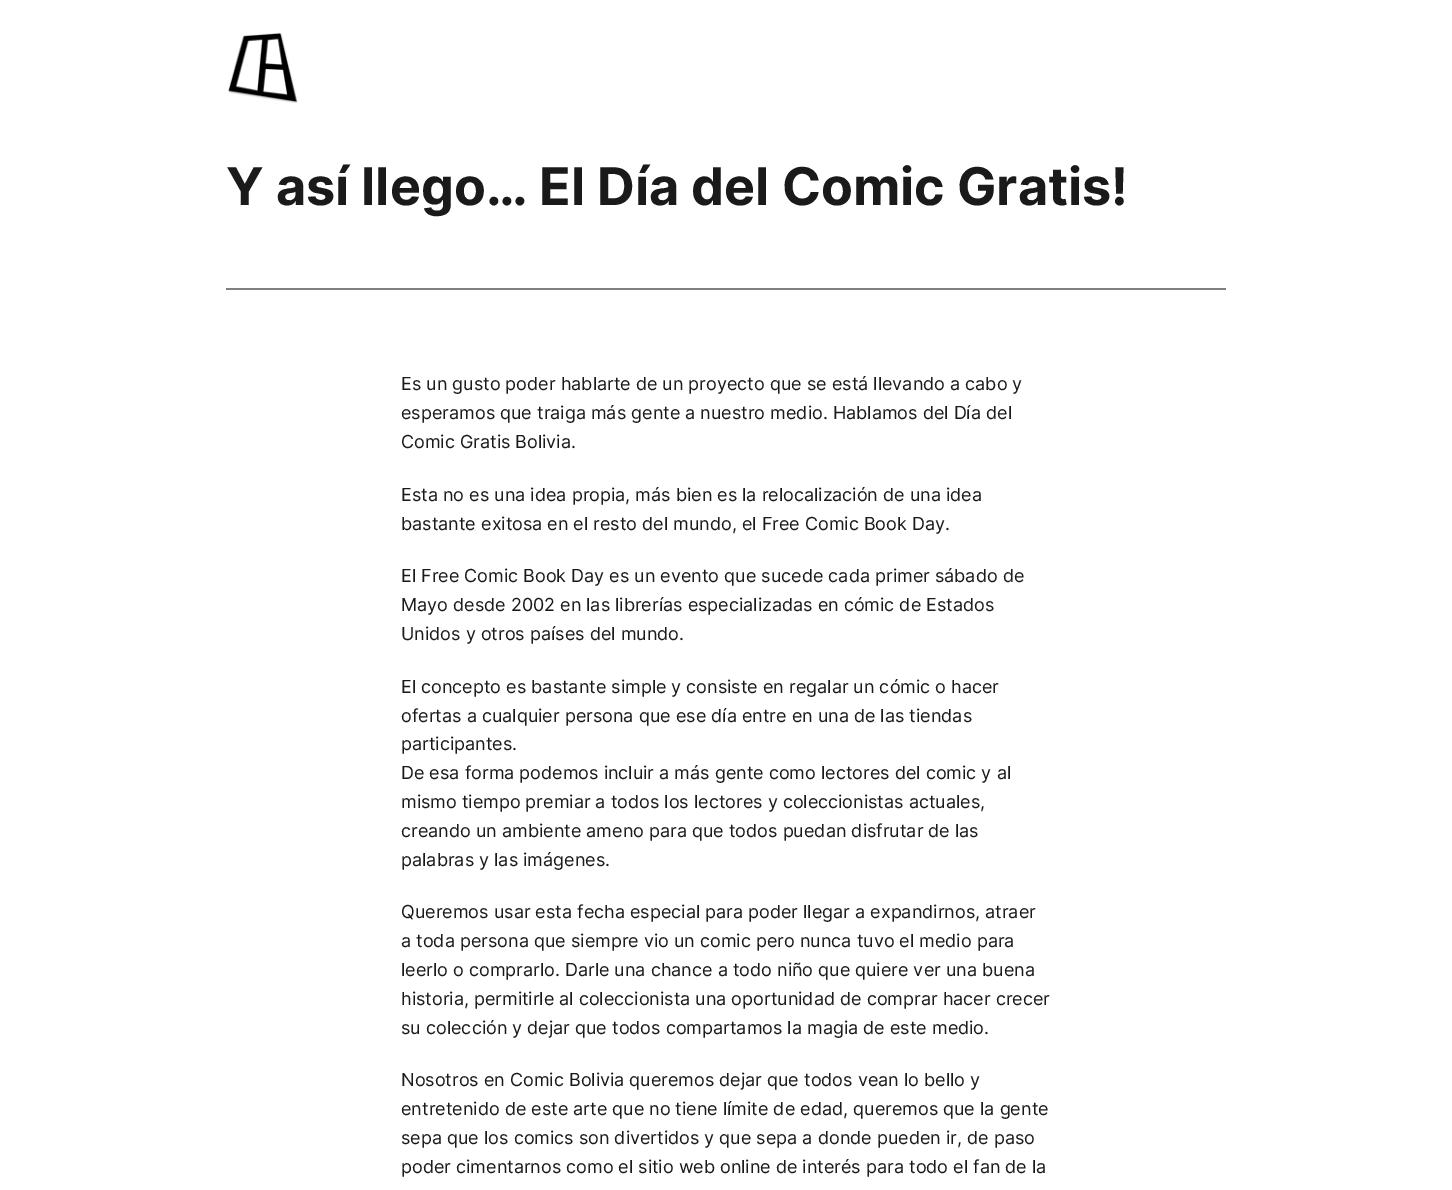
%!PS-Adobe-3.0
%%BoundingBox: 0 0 1452 1190
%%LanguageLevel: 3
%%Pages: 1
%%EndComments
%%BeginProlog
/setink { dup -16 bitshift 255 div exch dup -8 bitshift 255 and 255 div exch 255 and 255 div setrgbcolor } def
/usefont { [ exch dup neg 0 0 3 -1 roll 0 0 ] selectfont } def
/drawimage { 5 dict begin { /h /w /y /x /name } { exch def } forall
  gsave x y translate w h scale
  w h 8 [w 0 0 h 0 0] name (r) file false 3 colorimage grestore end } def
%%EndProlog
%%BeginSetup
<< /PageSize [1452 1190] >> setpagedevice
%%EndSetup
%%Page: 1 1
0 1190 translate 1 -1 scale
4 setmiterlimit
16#FFFFFF setink
0 0 1452 1190 rectfill
(img1.raw) 228 32 70 71 drawimage
/Inter-Bold 52 usefont
16#1A1A1A setink
226 205 moveto (Y así llego… El Día del Comic Gratis!) show
16#808080 setink
226 288 1000 2 rectfill
/Inter-Regular 18 usefont
16#1A1A1A setink
[
    [(Es un gusto poder hablarte de un proyecto que se está llevando a cabo y) 401 390]
    [(esperamos que traiga más gente a nuestro medio. Hablamos del Día del) 401 419]
    [(Comic Gratis Bolivia.) 401 448]
    [(Esta no es una idea propia, más bien es la relocalización de una idea) 401 501]
    [(bastante exitosa en el resto del mundo, el Free Comic Book Day.) 401 530]
    [(El Free Comic Book Day es un evento que sucede cada primer sábado de) 401 582]
    [(Mayo desde 2002 en las librerías especializadas en cómic de Estados) 401 611]
    [(Unidos y otros países del mundo.) 401 640]
    [(El concepto es bastante simple y consiste en regalar un cómic o hacer) 401 693]
    [(ofertas a cualquier persona que ese día entre en una de las tiendas) 401 722]
    [(participantes.) 401 750]
    [(De esa forma podemos incluir a más gente como lectores del comic y al) 401 779]
    [(mismo tiempo premiar a todos los lectores y coleccionistas actuales,) 401 808]
    [(creando un ambiente ameno para que todos puedan disfrutar de las) 401 837]
    [(palabras y las imágenes.) 401 866]
    [(Queremos usar esta fecha especial para poder llegar a expandirnos, atraer) 401 918]
    [(a toda persona que siempre vio un comic pero nunca tuvo el medio para) 401 947]
    [(leerlo o comprarlo. Darle una chance a todo niño que quiere ver una buena) 401 976]
    [(historia, permitirle al coleccionista una oportunidad de comprar hacer crecer) 401 1005]
    [(su colección y dejar que todos compartamos la magia de este medio.) 401 1034]
    [(Nosotros en Comic Bolivia queremos dejar que todos vean lo bello y) 401 1086]
    [(entretenido de este arte que no tiene límite de edad, queremos que la gente) 401 1115]
    [(sepa que los comics son divertidos y que sepa a donde pueden ir, de paso) 401 1144]
    [(poder cimentarnos como el sitio web online de interés para todo el fan de la) 401 1173]
] { aload pop moveto show } forall
showpage
%%EOF
